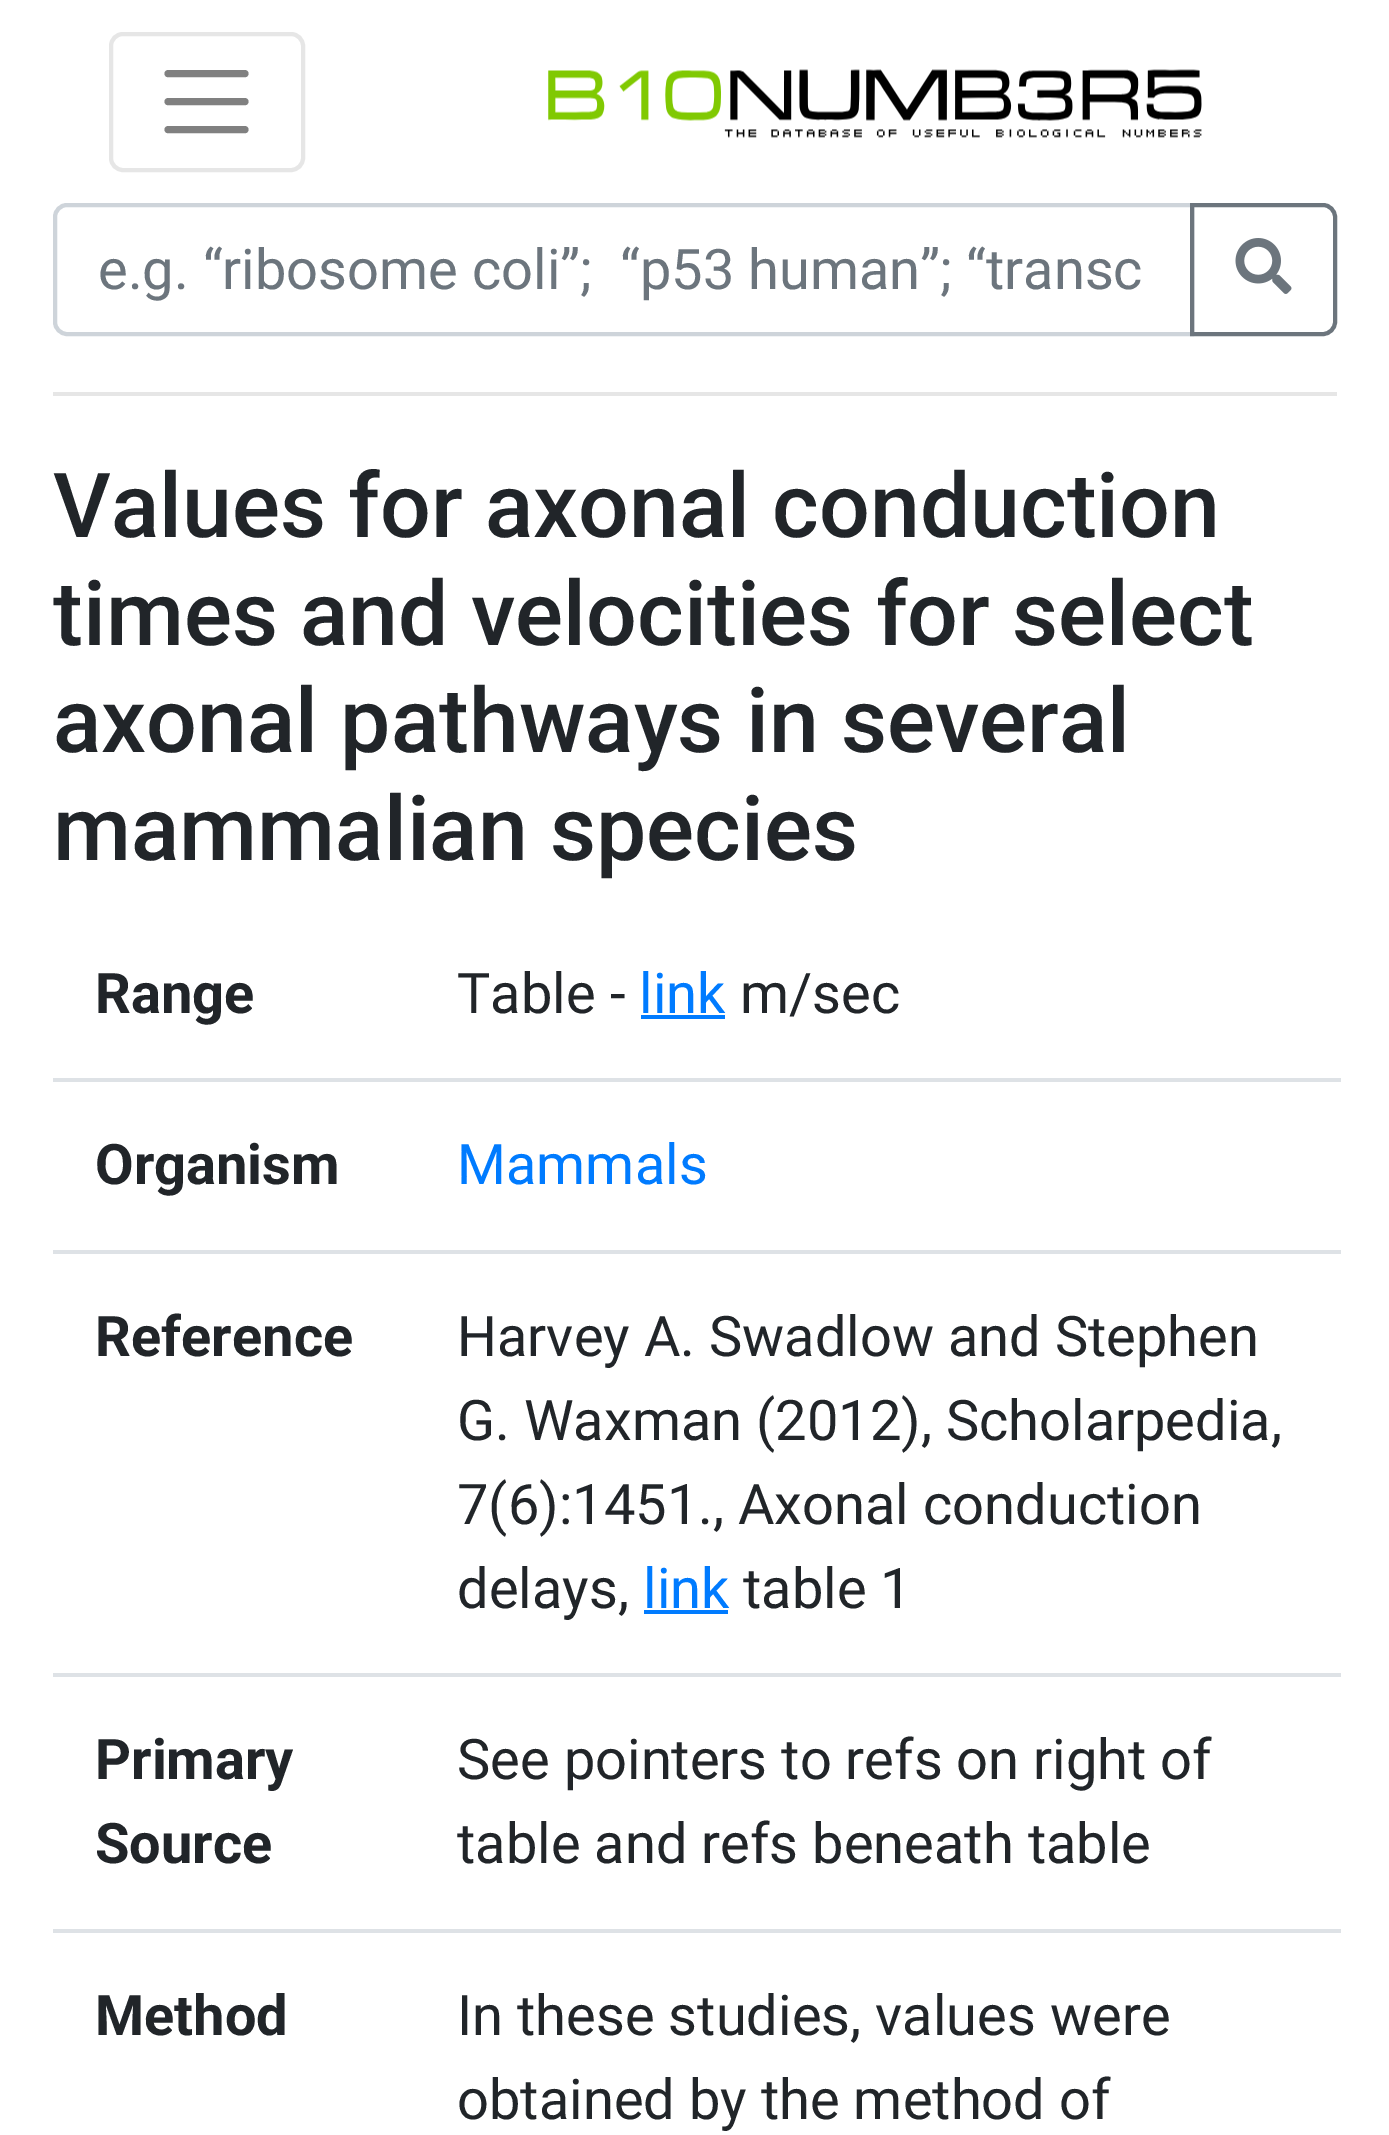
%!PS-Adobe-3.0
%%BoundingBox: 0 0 1389 2135
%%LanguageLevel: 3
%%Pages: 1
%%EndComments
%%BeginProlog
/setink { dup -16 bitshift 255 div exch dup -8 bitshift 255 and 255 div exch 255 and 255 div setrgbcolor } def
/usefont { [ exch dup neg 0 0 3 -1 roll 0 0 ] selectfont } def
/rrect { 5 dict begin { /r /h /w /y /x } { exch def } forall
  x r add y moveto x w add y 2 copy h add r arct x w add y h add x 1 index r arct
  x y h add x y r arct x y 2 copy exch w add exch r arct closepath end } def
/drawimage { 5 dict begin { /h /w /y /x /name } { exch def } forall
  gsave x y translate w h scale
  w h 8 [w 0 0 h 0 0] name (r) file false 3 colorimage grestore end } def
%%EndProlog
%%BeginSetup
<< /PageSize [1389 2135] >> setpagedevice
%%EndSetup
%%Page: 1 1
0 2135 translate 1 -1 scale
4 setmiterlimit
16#FFFFFF setink
0 0 1389 2135 rectfill
16#E6E6E6 setink
4 setlinewidth
111 34 192 136 12 rrect stroke
16#808080 setink
7 setlinewidth
1 setlinecap
168 73.5 moveto 245 73.5 lineto 168 101.5 moveto 245 101.5 lineto 168 129.5 moveto 245 129.5 lineto stroke
(img1.raw) 548 69 654 69 drawimage
16#CED4DA setink
4 setlinewidth
0 setlinecap
67 205 moveto 1192 205 lineto 1192 334 lineto 67 334 lineto 60.5 334 55 328.5 55 322 curveto 55 217 lineto 55 210.5 60.5 205 67 205 curveto closepath stroke
/Roboto-Regular 56 usefont
16#6C757D setink
98 289 moveto (e.g. “ribosome coli”;  “p53 human”; “transc) show
1192 205 moveto 1323 205 lineto 1329.5 205 1335 210.5 1335 217 curveto 1335 322 lineto 1335 328.5 1329.5 334 1323 334 curveto 1192 334 lineto closepath stroke
(img2.raw) 1235 238 57 56 drawimage
16#E6E6E6 setink
53 392 1284 4 rectfill
/Roboto-Medium 89.6 usefont
16#212529 setink
[
    [(Values for axonal conduction) 53 537]
    [(times and velocities for select) 53 645]
    [(axonal pathways in several) 53 752]
    [(mammalian species) 53 860]
] { aload pop moveto show } forall
/Roboto-Bold 56 usefont
95 1013 moveto (Range) show
/Roboto-Regular 56 usefont
457 1013 moveto (Table -) show
16#007BFF setink
639 1013 moveto (link) show
641 1015 84 4 rectfill
16#212529 setink
740 1013 moveto (m/sec) show
/Roboto-Bold 56 usefont
95 1184 moveto (Organism) show
16#DEE2E6 setink
53 1078 1288 4 rectfill
/Roboto-Regular 56 usefont
16#007BFF setink
457 1184 moveto (Mammals) show
/Roboto-Bold 56 usefont
16#212529 setink
95 1356 moveto (Reference) show
16#DEE2E6 setink
53 1250 1288 4 rectfill
/Roboto-Regular 56 usefont
16#212529 setink
[
    [(Harvey A. Swadlow and Stephen) 457 1356]
    [(G. Waxman \(2012\), Scholarpedia,) 457 1440]
    [(7\(6\):1451., Axonal conduction) 457 1524]
    [(delays,) 457 1608]
] { aload pop moveto show } forall
16#007BFF setink
643 1608 moveto (link) show
644 1610 84 4 rectfill
16#212529 setink
743 1608 moveto (table 1) show
/Roboto-Bold 56 usefont
95 1779 moveto (Primary) show
95 1863 moveto (Source) show
16#DEE2E6 setink
53 1673 1288 4 rectfill
/Roboto-Regular 56 usefont
16#212529 setink
457 1779 moveto (See pointers to refs on right of) show
457 1863 moveto (table and refs beneath table) show
/Roboto-Bold 56 usefont
95 2035 moveto (Method) show
16#DEE2E6 setink
53 1929 1288 4 rectfill
/Roboto-Regular 56 usefont
16#212529 setink
457 2035 moveto (In these studies, values were) show
457 2119 moveto (obtained by the method of) show
showpage
%%EOF
